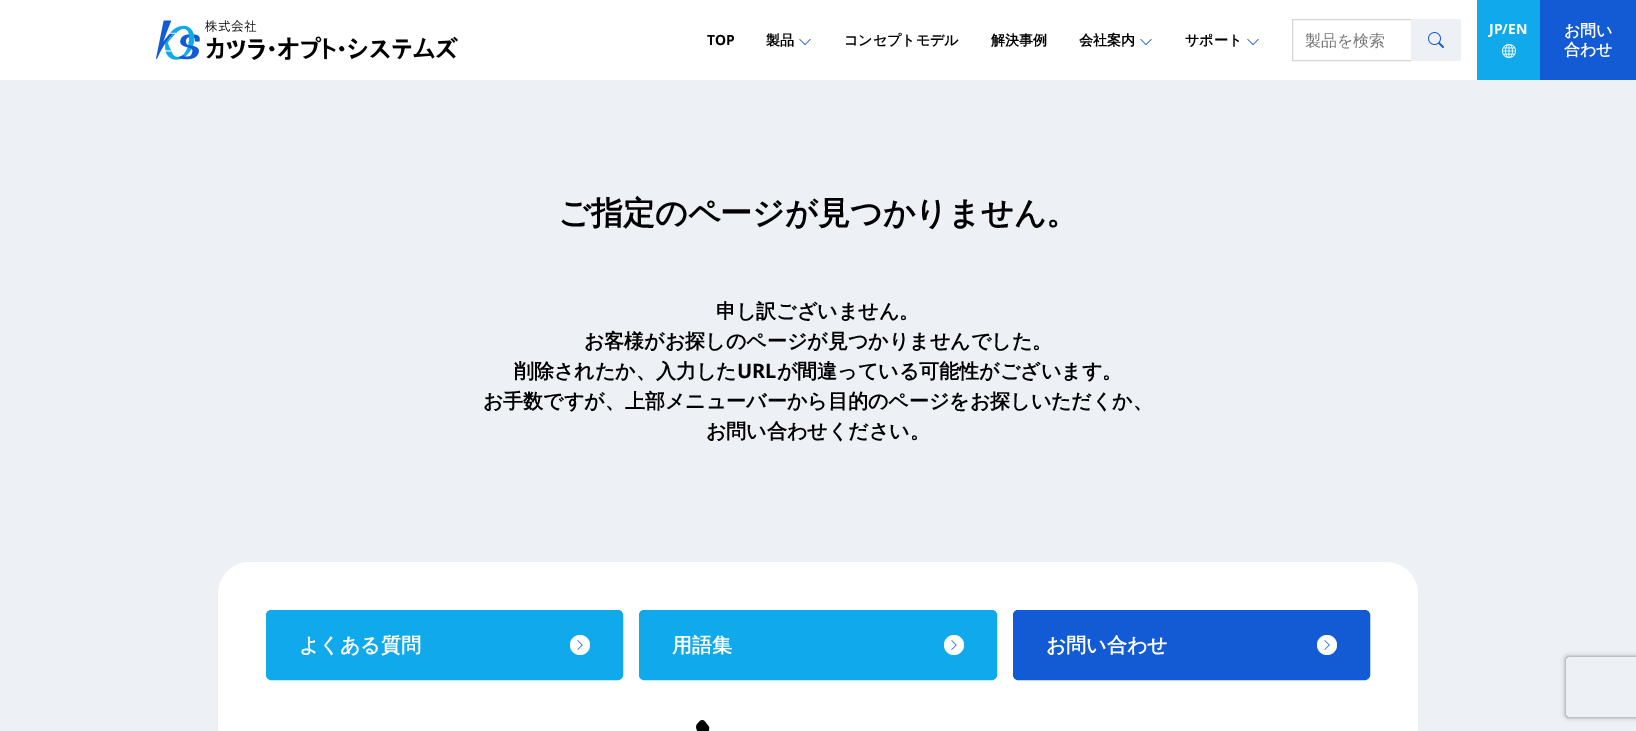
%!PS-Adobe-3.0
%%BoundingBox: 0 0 1636 731
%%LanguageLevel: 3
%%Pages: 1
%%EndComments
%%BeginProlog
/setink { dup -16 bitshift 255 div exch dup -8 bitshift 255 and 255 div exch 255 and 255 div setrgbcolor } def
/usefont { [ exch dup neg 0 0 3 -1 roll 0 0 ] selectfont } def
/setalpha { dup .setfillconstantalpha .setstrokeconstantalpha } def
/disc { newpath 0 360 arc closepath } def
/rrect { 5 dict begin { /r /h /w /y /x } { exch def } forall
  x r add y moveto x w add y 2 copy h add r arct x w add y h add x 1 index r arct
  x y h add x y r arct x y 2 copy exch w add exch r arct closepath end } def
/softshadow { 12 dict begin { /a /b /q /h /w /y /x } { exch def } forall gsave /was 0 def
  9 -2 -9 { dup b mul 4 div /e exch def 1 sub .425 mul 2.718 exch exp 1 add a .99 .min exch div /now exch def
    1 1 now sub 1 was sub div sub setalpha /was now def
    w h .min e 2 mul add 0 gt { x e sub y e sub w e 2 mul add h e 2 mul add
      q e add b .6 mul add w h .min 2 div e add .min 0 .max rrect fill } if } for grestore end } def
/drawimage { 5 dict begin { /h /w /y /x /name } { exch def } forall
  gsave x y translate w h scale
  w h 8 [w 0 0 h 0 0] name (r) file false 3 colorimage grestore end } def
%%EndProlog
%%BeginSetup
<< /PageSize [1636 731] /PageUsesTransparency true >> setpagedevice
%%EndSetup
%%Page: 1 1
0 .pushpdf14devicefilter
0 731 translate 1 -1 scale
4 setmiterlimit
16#FFFFFF setink
0 0 1636 731 rectfill
(img1.raw) 156 20 302 40 drawimage
/NotoSans-Bold 14 usefont
16#000000 setink
707 45 moveto (TOP) show
/WenQuanYiZenHei-Bold 14 usefont
766 45 moveto (製品) show
(img2.raw) 799 39 12 6 drawimage
[
    [(コンセプトモデル) 844 45]
    [(解決事例) 991 45]
    [(会社案内) 1079 45]
] { aload pop moveto show } forall
(img2.raw) 1140 39 12 6 drawimage
1185 45 moveto (サポート) show
(img2.raw) 1247 39 12 6 drawimage
16#D5D5D5 setink
1292.5 19.5 119 41 rectstroke
/WenQuanYiZenHei-Medium 16 usefont
16#777777 setink
1305 46 moveto (製品を検索) show
16#EDF1F6 setink
1411 19 50 42 rectfill
(img3.raw) 1428 32 16 16 drawimage
16#0FA9EC setink
1477 0 63 80 rectfill
/NotoSans-Bold 14 usefont
16#FFFFFF setink
1489 34 moveto (JP/EN) show
(img4.raw) 1502 44 14 14 drawimage
16#135AD5 setink
1540 0 96 80 rectfill
/WenQuanYiZenHei-Bold 16 usefont
16#FFFFFF setink
1564 36 moveto (お問い) show
1564 55 moveto (合わせ) show
16#EDF1F6 setink
0 80 1636 651 rectfill
/WenQuanYiZenHei-Bold 32 usefont
16#000000 setink
558 224 moveto (ご指定のページが見つかりません。) show
/WenQuanYiZenHei-Bold 20 usefont
[
    [(申し訳ございません。) 716 318]
    [(お客様がお探しのページが見つかりませんでした。) 584 348]
    [(削除されたか、入力した) 514 378]
] { aload pop moveto show } forall
/NotoSans-Bold 20 usefont
737 378 moveto (URL) show
/WenQuanYiZenHei-Bold 20 usefont
[
    [(が間違っている可能性がございます。) 777 378]
    [(お手数ですが、上部メニューバーから目的のページをお探しいただくか、) 483 408]
    [(お問い合わせください。) 706 438]
] { aload pop moveto show } forall
16#FFFFFF setink
218 562 1200 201 32 rrect fill
16#0FA9EC setink
266.5 610.5 356 69 4.5 rrect gsave fill grestore
stroke
16#FFFFFF setink
299 652 moveto (よくある質問) show
580 645 10 disc fill
(img5.raw) 577 640 6 10 drawimage
16#0FA9EC setink
639.5 610.5 357 69 4.5 rrect gsave fill grestore
stroke
16#FFFFFF setink
672 652 moveto (用語集) show
954 645 10 disc fill
(img5.raw) 951 640 6 10 drawimage
16#135AD5 setink
1013.5 610.5 356 69 4.5 rrect gsave fill grestore
stroke
16#FFFFFF setink
1046 652 moveto (お問い合わせ) show
1327 645 10 disc fill
(img5.raw) 1324 640 6 10 drawimage
(img6.raw) 696 720 14 11 drawimage
gsave
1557 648 moveto 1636 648 lineto 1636 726 lineto 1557 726 lineto closepath 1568 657 moveto 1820 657 lineto 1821 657 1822 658 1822 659 curveto 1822 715 lineto 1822 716 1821 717 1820 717 curveto 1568 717 lineto 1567 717 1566 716 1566 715 curveto 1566 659 lineto 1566 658 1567 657 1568 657 curveto closepath eoclip newpath
16#808080 setink
1566 657 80 60 2 2.5 1 softshadow
grestore
.poppdf14devicefilter showpage
%%EOF
